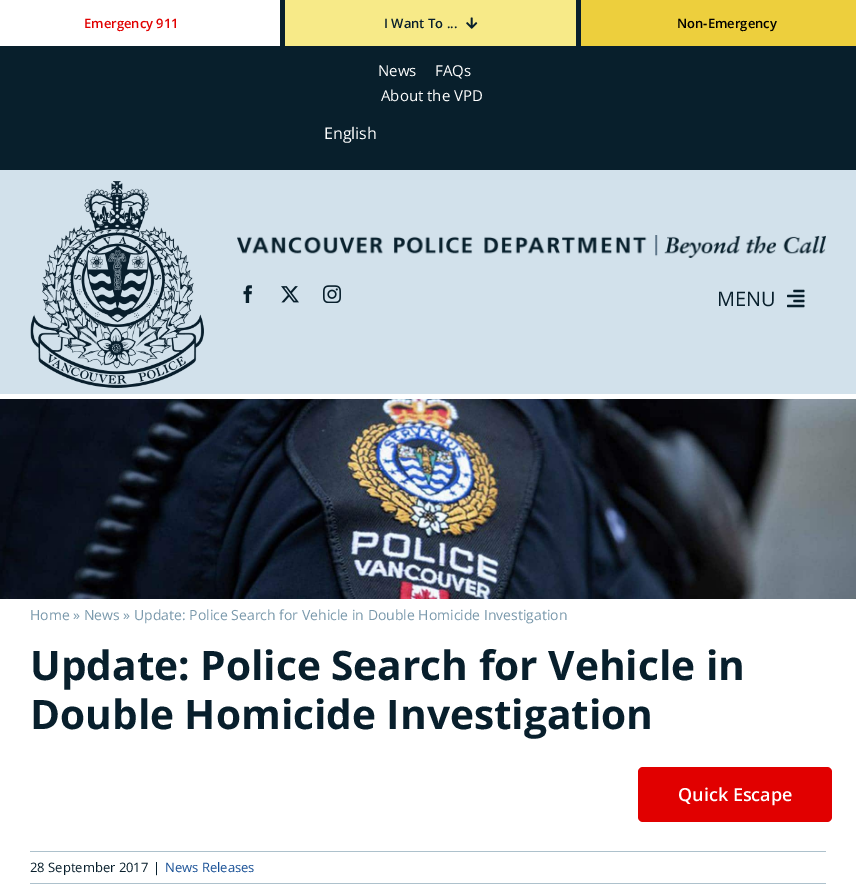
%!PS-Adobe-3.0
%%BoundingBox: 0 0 856 896
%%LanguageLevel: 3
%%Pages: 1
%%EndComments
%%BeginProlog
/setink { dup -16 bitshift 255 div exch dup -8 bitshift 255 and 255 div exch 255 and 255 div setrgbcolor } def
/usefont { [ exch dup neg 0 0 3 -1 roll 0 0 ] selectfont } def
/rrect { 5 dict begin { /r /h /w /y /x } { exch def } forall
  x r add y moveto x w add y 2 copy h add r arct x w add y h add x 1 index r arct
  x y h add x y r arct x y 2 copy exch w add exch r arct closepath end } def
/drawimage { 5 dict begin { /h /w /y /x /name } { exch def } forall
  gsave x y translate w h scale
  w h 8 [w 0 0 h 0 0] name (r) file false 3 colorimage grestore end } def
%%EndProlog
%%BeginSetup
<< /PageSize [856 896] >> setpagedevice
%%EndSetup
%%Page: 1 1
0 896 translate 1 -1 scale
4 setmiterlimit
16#FFFFFF setink
0 0 856 896 rectfill
16#081F2C setink
0 0 856 170 rectfill
16#FFFFFF setink
0 0 280 46 rectfill
/OpenSans-SemiBold 13 usefont
16#E10000 setink
84 28 moveto (Emergency 911) show
16#F7EA88 setink
285 0 291 46 rectfill
16#081F2C setink
384 28 moveto (I Want To ...) show
(img1.raw) 466 17 12 12 drawimage
16#EDCF3D setink
581 0 275 46 rectfill
16#000000 setink
677 28 moveto (Non-Emergency) show
/OpenSans-Regular 15 usefont
16#FFFFFF setink
[
    [(News) 378 76]
    [(FAQs) 435 76]
    [(About the VPD) 381 101]
] { aload pop moveto show } forall
/OpenSans-Regular 16 usefont
324 139 moveto (English) show
16#D2E1EB setink
0 170 856 224 rectfill
(img2.raw) 30 181 174 207 drawimage
(img3.raw) 237 235 589 23 drawimage
(img4.raw) 243 285 9 18 drawimage
(img5.raw) 281 286 18 17 drawimage
(img6.raw) 323 285 18 18 drawimage
/OpenSans-Regular 20 usefont
16#081F2C setink
717 306 moveto (MENU) show
(img7.raw) 787 289 18 19 drawimage
(img8.raw) 0 399 856 200 drawimage
/OpenSans-Regular 14 usefont
16#7A99AC setink
30 620 moveto (Home » News » Update: Police Search for Vehicle in Double Homicide Investigation) show
/OpenSans-Bold 40.6 usefont
16#081F2C setink
30 680 moveto (Update: Police Search for Vehicle in) show
30 729 moveto (Double Homicide Investigation) show
16#E10000 setink
638 767 194 55 5 rrect fill
/OpenSans-SemiBold 18 usefont
16#FFFFFF setink
678 801 moveto (Quick Escape) show
16#ADC1CC setink
30 851 796 1 rectfill
30 883 796 1 rectfill
/OpenSans-Regular 13 usefont
16#081F2C setink
30 872 moveto (28 September 2017) show
153 872 moveto (|) show
16#185096 setink
165 872 moveto (News Releases) show
showpage
%%EOF
